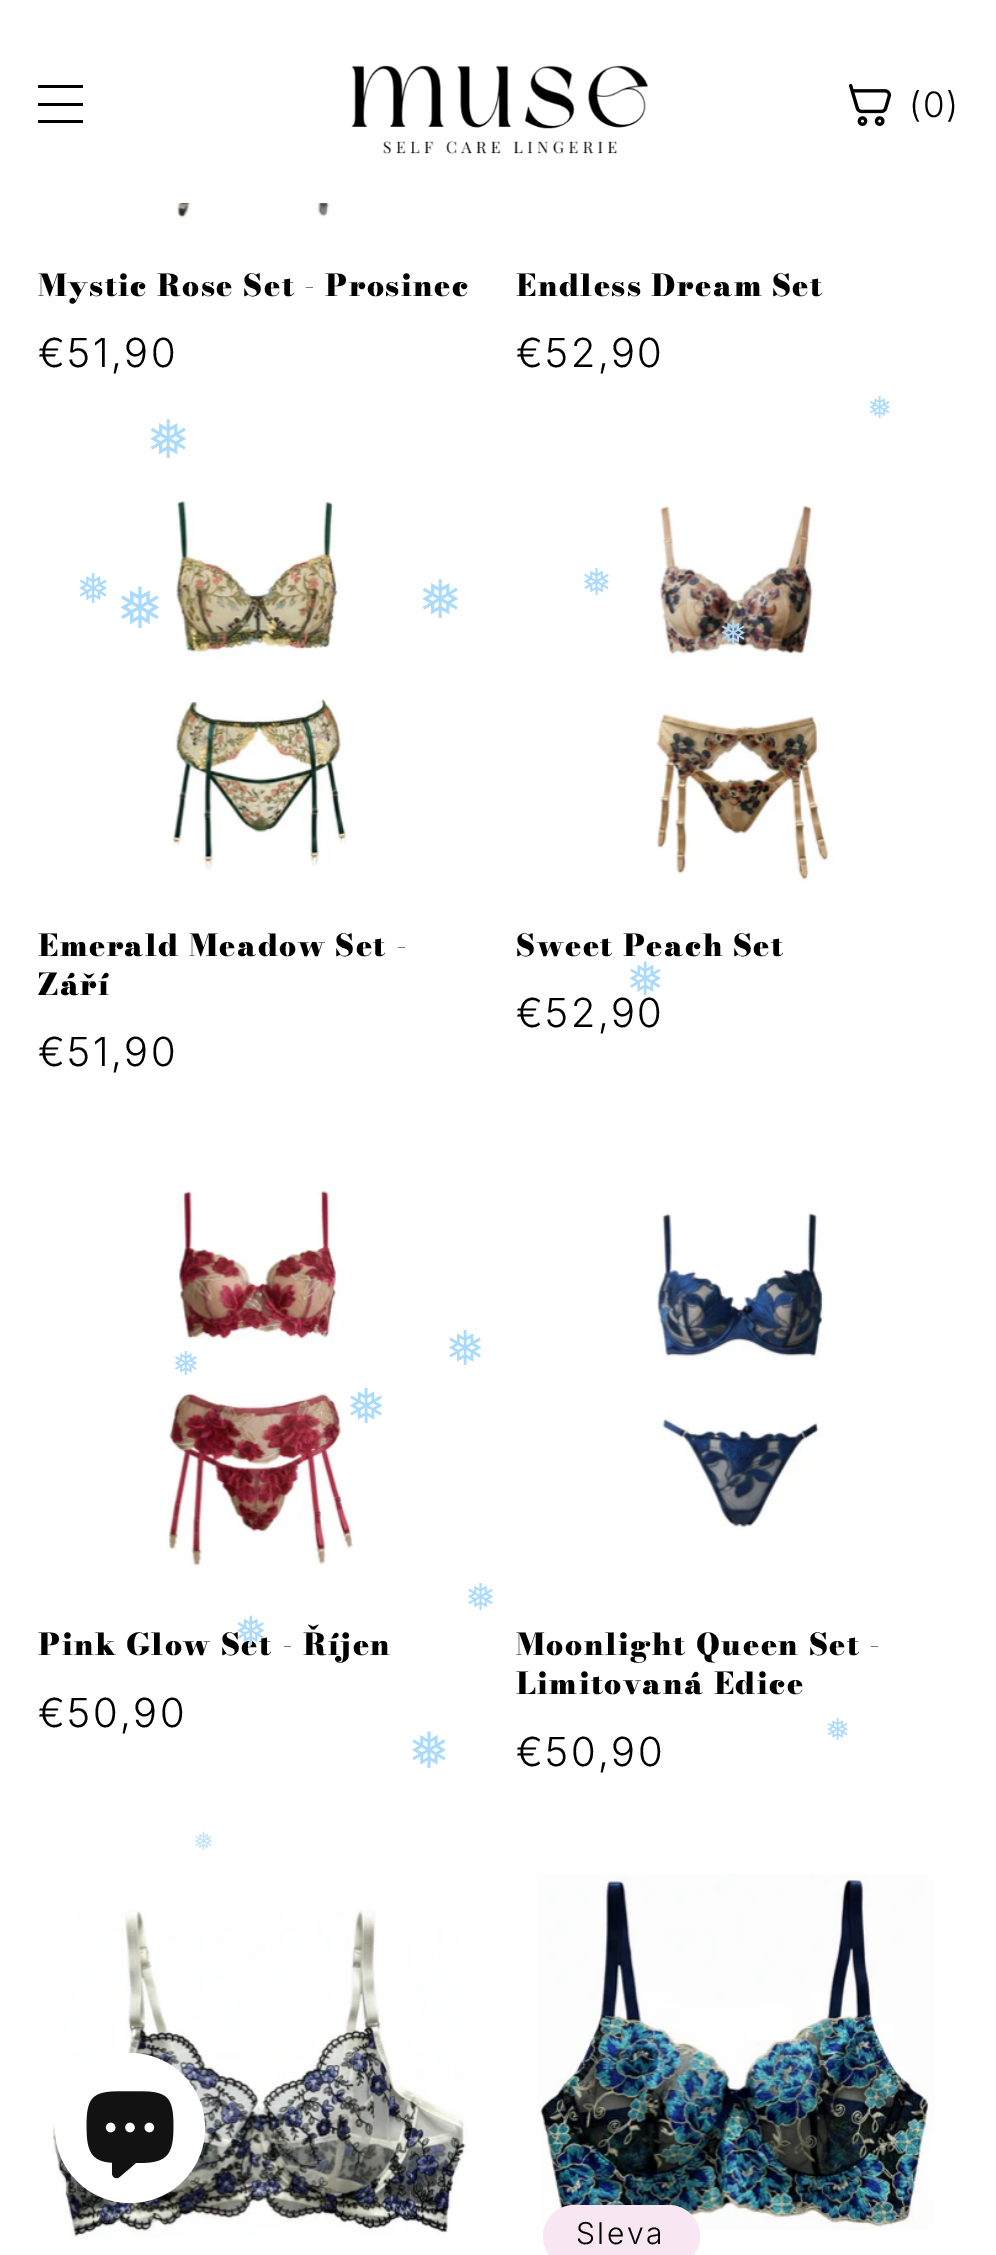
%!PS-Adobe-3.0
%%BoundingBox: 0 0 996 2255
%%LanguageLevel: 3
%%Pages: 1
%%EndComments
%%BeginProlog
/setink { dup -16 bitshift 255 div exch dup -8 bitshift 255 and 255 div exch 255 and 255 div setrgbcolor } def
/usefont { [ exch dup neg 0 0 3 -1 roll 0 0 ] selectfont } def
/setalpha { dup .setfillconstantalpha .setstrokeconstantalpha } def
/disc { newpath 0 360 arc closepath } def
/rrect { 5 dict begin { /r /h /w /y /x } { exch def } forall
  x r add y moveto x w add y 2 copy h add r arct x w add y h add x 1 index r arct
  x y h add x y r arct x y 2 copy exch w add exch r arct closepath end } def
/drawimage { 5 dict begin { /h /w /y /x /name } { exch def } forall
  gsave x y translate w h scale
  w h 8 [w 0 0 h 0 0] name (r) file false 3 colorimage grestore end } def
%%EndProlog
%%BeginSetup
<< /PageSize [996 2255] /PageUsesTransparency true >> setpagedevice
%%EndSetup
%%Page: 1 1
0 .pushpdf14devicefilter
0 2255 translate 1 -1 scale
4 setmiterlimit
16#FFFFFF setink
0 0 996 2255 rectfill
[
    [38 103 45 3 16#000000]
    [38 85 45 3 16#000000]
    [38 120 45 3 16#000000]
] { aload pop setink rectfill } forall
(img1.raw) 351 65 297 89 drawimage
(img2.raw) 849 84 42 42 drawimage
/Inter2-Light 35 usefont
909 117 moveto 1.5 0 (\(0\)) ashow
(img3.raw) 156 203 208 16 drawimage
/BodoniModa-Black 30 usefont
38 296 moveto 1.5 0 (Mystic Rose Set - Prosinec) ashow
/Inter-Light 40 usefont
38 367 moveto 2.5 0 (€51,90) ashow
/BodoniModa-Black 30 usefont
516 296 moveto 1.5 0 (Endless Dream Set) ashow
/Inter-Light 40 usefont
516 367 moveto 2.5 0 (€52,90) ashow
(img4.raw) 172 500 176 371 drawimage
/BodoniModa-Black 30 usefont
38 956 moveto 1.5 0 (Emerald Meadow Set -) ashow
38 995 moveto 1.5 0 (Září) ashow
/Inter-Light 40 usefont
38 1066 moveto 2.5 0 (€51,90) ashow
(img5.raw) 656 500 178 385 drawimage
/BodoniModa-Black 30 usefont
516 956 moveto 1.5 0 (Sweet Peach Set) ashow
/Inter-Light 40 usefont
516 1027 moveto 2.5 0 (€52,90) ashow
(img6.raw) 167 1190 187 376 drawimage
/BodoniModa-Black 30 usefont
38 1655 moveto 1.5 0 (Pink Glow Set - Říjen) ashow
/Inter-Light 40 usefont
38 1727 moveto 2.5 0 (€50,90) ashow
(img7.raw) 656 1211 168 318 drawimage
/BodoniModa-Black 30 usefont
516 1655 moveto 1.5 0 (Moonlight Queen Set -) ashow
516 1694 moveto 1.5 0 (Limitovaná Edice) ashow
/Inter-Light 40 usefont
516 1766 moveto 2.5 0 (€50,90) ashow
(img8.raw) 52 1910 416 328 drawimage
(img9.raw) 538 1874 397 356 drawimage
16#F8E7F2 setink
543 2205 157 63 31.5 rrect fill
0.1 setalpha
3 setlinewidth
544.5 2206.5 154 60 30 rrect stroke
/Inter2-Light 30 usefont
1 setalpha
16#000000 setink
576 2244 moveto 2.5 0 (Sleva) ashow
/DejaVuSans-Regular 30 usefont
16#AADAFD setink
867 418 moveto 1.5 0 (❅) ashow
/DejaVuSans-Regular 53 usefont
146 458 moveto 1.5 0 (❅) ashow
/DejaVuSans-Regular 41 usefont
76 603 moveto 1.5 0 (❅) ashow
/DejaVuSans-Regular 57 usefont
116 628 moveto 1.5 0 (❅) ashow
/DejaVuSans-Regular 53 usefont
418 618 moveto 1.5 0 (❅) ashow
/DejaVuSans-Regular 37 usefont
581 595 moveto 1.5 0 (❅) ashow
/DejaVuSans-Regular 34 usefont
719 645 moveto 1.5 0 (❅) ashow
/DejaVuSans-Regular 46 usefont
626 995 moveto 1.5 0 (❅) ashow
/DejaVuSans-Regular 33 usefont
172 1375 moveto 1.5 0 (❅) ashow
/DejaVuSans-Regular 48 usefont
445 1365 moveto 1.5 0 (❅) ashow
346 1423 moveto 1.5 0 (❅) ashow
/DejaVuSans-Regular 37 usefont
465 1610 moveto 1.5 0 (❅) ashow
/DejaVuSans-Regular 40 usefont
234 1645 moveto 1.5 0 (❅) ashow
/DejaVuSans-Regular 30 usefont
825 1740 moveto 1.5 0 (❅) ashow
/DejaVuSans-Regular 50 usefont
408 1768 moveto 1.5 0 (❅) ashow
/DejaVuSans-Regular 25 usefont
16#C1E4FE setink
193 1850 moveto 1.5 0 (❅) ashow
16#FFFFFF setink
130 2128 75 disc fill
(img10.raw) 86 2091 88 88 drawimage
.poppdf14devicefilter showpage
%%EOF
